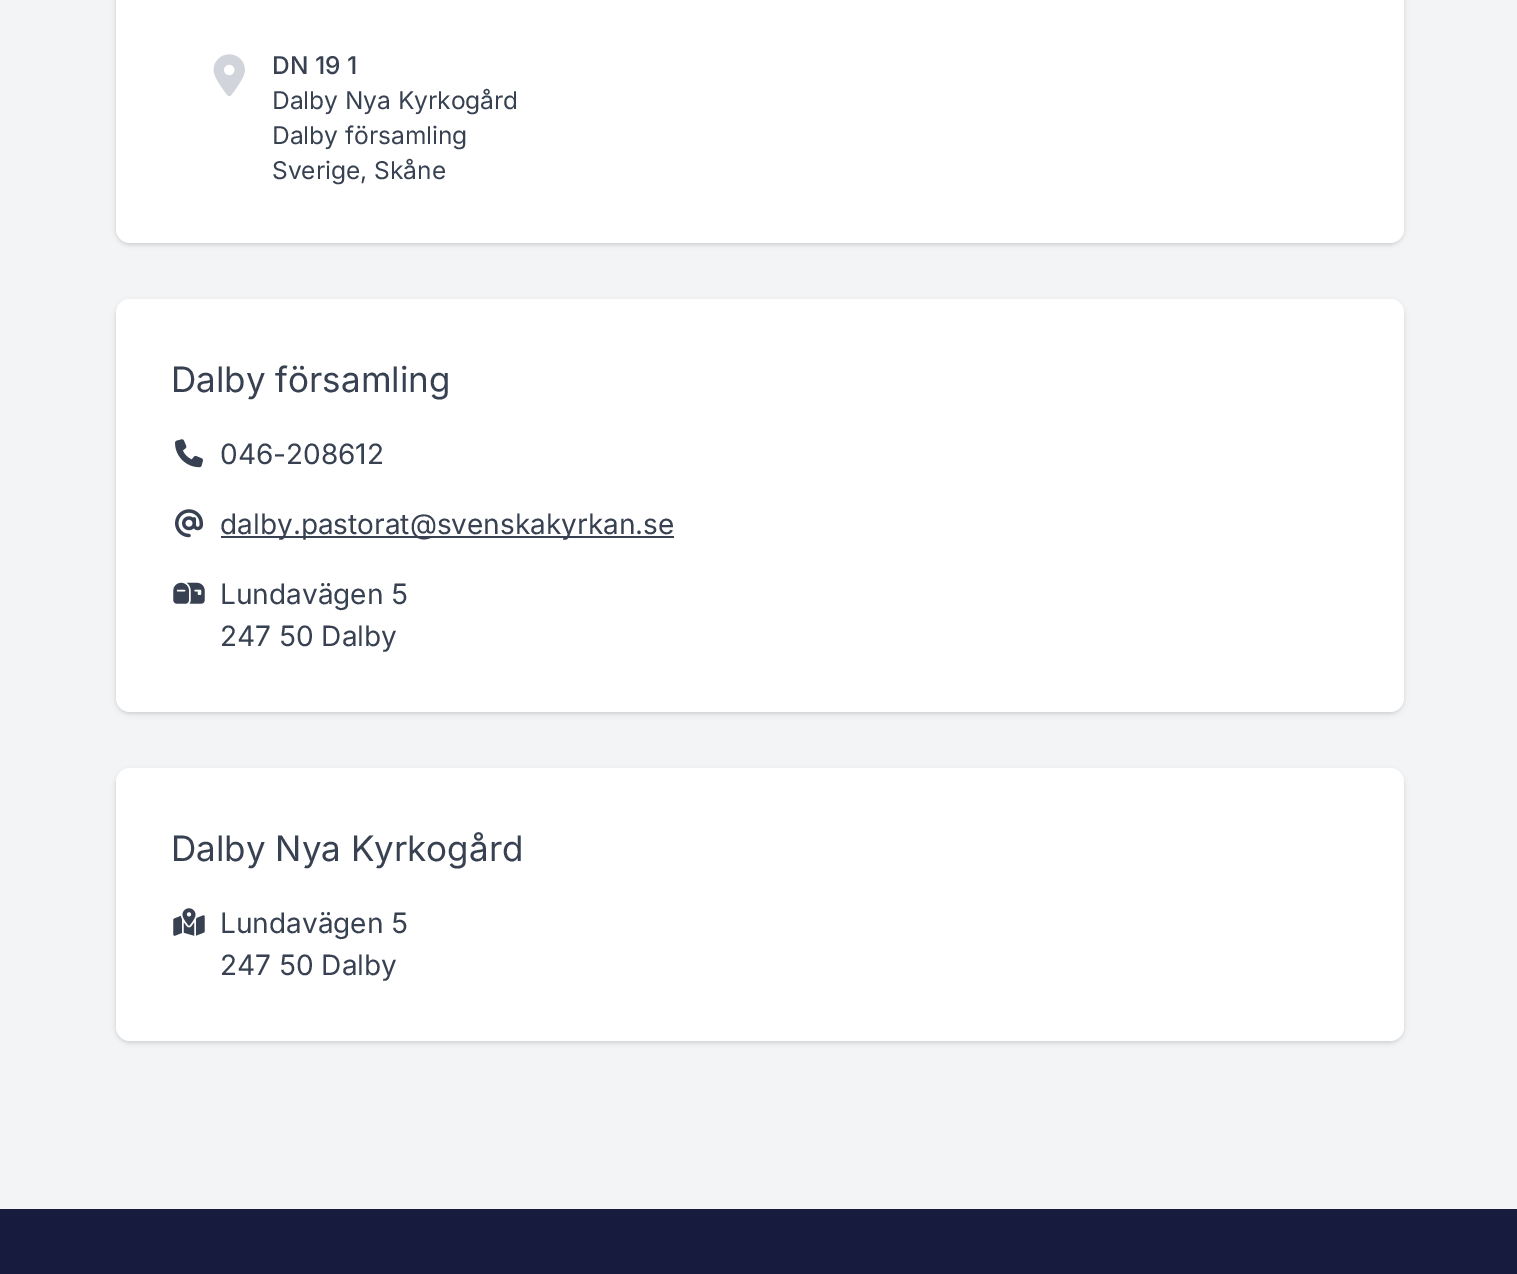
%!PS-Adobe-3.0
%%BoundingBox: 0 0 1517 1274
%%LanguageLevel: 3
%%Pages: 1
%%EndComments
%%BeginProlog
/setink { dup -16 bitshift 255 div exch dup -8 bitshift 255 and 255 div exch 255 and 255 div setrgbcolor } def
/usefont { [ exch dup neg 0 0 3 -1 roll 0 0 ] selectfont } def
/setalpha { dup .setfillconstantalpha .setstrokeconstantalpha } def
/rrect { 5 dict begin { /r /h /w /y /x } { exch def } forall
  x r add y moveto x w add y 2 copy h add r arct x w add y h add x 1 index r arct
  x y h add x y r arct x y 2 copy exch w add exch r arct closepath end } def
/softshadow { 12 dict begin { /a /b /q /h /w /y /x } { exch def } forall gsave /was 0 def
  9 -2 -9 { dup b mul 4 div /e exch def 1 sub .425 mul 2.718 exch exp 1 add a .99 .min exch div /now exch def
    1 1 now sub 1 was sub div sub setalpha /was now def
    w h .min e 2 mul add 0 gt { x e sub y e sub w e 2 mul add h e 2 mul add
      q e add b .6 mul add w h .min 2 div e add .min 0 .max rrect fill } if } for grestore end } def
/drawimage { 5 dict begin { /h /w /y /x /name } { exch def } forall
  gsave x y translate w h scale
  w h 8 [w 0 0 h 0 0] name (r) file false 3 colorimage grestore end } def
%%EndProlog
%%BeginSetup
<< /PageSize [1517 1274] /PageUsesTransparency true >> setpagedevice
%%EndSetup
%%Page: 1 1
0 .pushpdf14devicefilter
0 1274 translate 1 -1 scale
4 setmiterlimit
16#171B3D setink
0 0 1517 1274 rectfill
16#F3F4F6 setink
0 0 1517 1209 rectfill
16#000000 setink
117 -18 1285 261 12 2 0.1 softshadow
116 -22 1288 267 14 2.5 0.1 softshadow
16#FFFFFF setink
116 -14 1288 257 14 rrect fill
(img1.raw) 213 54 32 43 drawimage
/Inter-Medium 24.5 usefont
16#374151 setink
272 74 moveto (DN 19 1) show
/Inter-Regular 24.5 usefont
[
    [(Dalby Nya Kyrkogård) 272 109]
    [(Dalby församling) 272 144]
    [(Sverige, Skåne) 272 179]
] { aload pop moveto show } forall
16#000000 setink
117 303 1285 409 12 2 0.1 softshadow
116 301 1288 413 14 2.5 0.1 softshadow
16#FFFFFF setink
116 299 1288 413 14 rrect fill
/Inter-Regular 35 usefont
16#374151 setink
171 392 moveto (Dalby församling) show
(img2.raw) 175 439 28 29 drawimage
/Inter-Regular 28 usefont
220 464 moveto (046-208612) show
(img3.raw) 175 509 28 29 drawimage
221 536 453 2 rectfill
220 534 moveto (dalby.pastorat@svenskakyrkan.se) show
(img4.raw) 173 582 32 22 drawimage
220 604 moveto (Lundavägen 5) show
220 646 moveto (247 50 Dalby) show
16#000000 setink
117 772 1285 269 12 2 0.1 softshadow
116 770 1288 273 14 2.5 0.1 softshadow
16#FFFFFF setink
116 768 1288 273 14 rrect fill
/Inter-Regular 35 usefont
16#374151 setink
171 861 moveto (Dalby Nya Kyrkogård) show
(img5.raw) 173 908 32 28 drawimage
/Inter-Regular 28 usefont
220 933 moveto (Lundavägen 5) show
220 975 moveto (247 50 Dalby) show
.poppdf14devicefilter showpage
%%EOF
